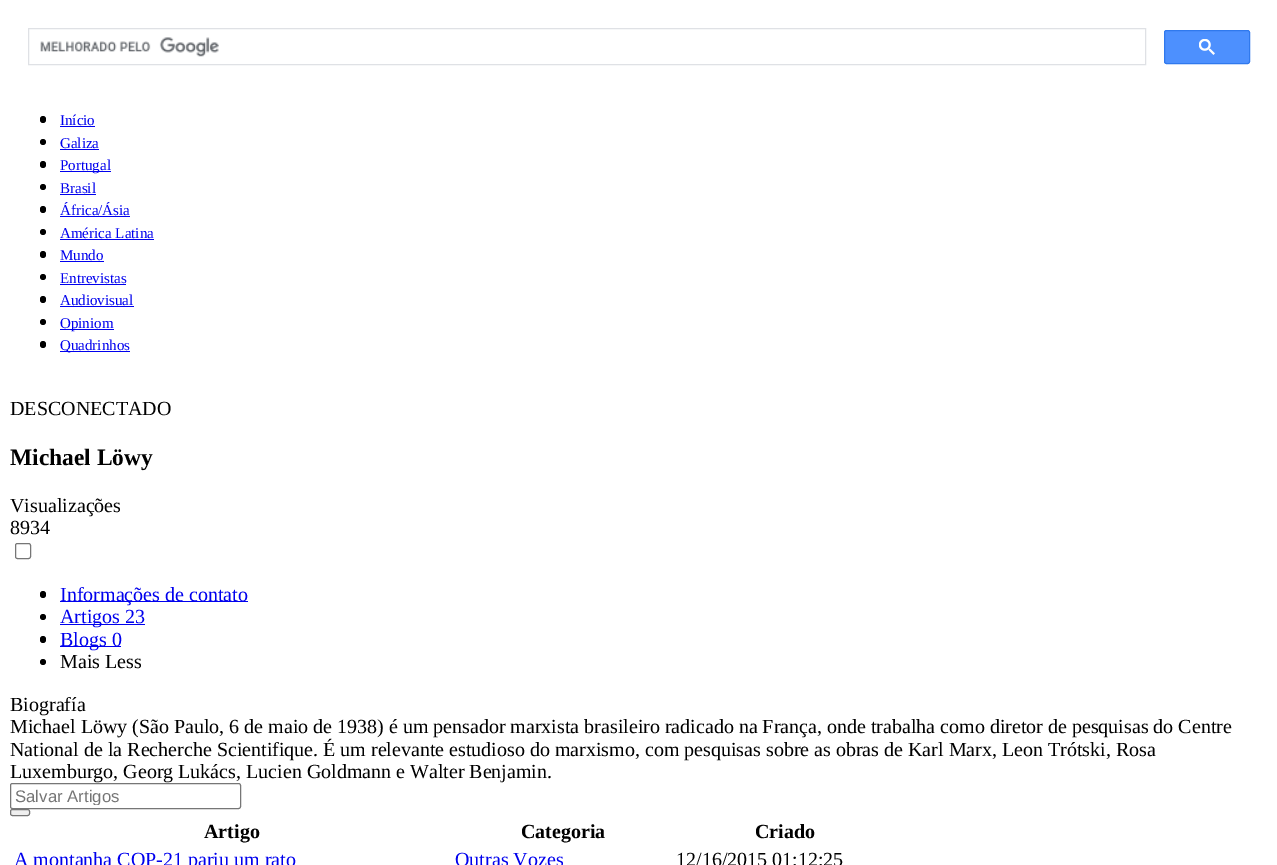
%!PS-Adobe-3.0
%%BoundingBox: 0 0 1277 865
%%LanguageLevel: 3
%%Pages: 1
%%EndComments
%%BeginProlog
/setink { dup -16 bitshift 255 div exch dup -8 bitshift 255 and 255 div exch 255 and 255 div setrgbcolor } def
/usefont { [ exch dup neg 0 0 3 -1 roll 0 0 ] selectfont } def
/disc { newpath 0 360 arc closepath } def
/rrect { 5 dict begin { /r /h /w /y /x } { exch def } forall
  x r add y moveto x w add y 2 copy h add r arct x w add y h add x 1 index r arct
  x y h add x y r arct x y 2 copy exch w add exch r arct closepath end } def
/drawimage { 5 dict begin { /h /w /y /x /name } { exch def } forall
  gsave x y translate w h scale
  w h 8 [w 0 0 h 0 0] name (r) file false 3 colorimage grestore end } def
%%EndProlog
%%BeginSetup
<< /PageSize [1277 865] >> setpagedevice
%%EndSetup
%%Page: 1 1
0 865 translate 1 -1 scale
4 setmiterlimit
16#FFFFFF setink
0 0 1277 865 rectfill
16#DFE1E5 setink
28.5 28.5 1117 36 rectstroke
(img1.raw) 40 37 179 20 drawimage
16#4D90FE setink
1164.5 30.5 85 33 2 rrect gsave fill grestore
16#3079ED setink
stroke
(img2.raw) 1199 39 16 16 drawimage
16#000000 setink
40 116 6 7 3 rrect fill
/LiberationSerif-Regular 15 usefont
16#0000EE setink
60 125 moveto (Início) show
60 126 35 1 rectfill
16#000000 setink
43 142 3 disc fill
16#0000EE setink
60 148 moveto (Galiza) show
60 149 39 1 rectfill
16#000000 setink
40 161 6 7 3 rrect fill
16#0000EE setink
60 171 51 1 rectfill
60 170 moveto (Portugal) show
16#000000 setink
43 187 3 disc fill
16#0000EE setink
60 193 moveto (Brasil) show
60 194 36 1 rectfill
16#000000 setink
40 206 6 7 3 rrect fill
16#0000EE setink
60 215 moveto (África/Ásia) show
60 216 70 1 rectfill
16#000000 setink
43 232 3 disc fill
16#0000EE setink
60 238 moveto (América Latina) show
60 239 94 1 rectfill
16#000000 setink
40 251 6 7 3 rrect fill
16#0000EE setink
60 260 moveto (Mundo) show
60 261 44 1 rectfill
16#000000 setink
43 277 3 disc fill
16#0000EE setink
60 283 moveto (Entrevistas) show
60 284 66 1 rectfill
16#000000 setink
40 296 6 7 3 rrect fill
16#0000EE setink
60 305 moveto (Audiovisual) show
60 306 74 1 rectfill
16#000000 setink
43 322 3 disc fill
16#0000EE setink
60 329 54 1 rectfill
60 328 moveto (Opiniom) show
16#000000 setink
40 341 6 7 3 rrect fill
16#0000EE setink
60 351 70 1 rectfill
60 350 moveto (Quadrinhos) show
/LiberationSerif-Regular 20 usefont
16#000000 setink
10 415 moveto (DESCONECTADO) show
/LiberationSerif-Bold 23.5 usefont
10 465 moveto (Michael Löwy) show
/LiberationSerif-Regular 20 usefont
10 512 moveto (Visualizações) show
10 534 moveto (8934) show
16#767676 setink
15.5 543.5 15 15 2 rrect stroke
16#000000 setink
40 591 6 7 3 rrect fill
16#0000EE setink
60 601 188 1 rectfill
60 601 moveto (Informações de contato) show
16#000000 setink
43 617 3 disc fill
16#0000EE setink
60 624 85 1 rectfill
60 623 moveto (Artigos 23) show
16#000000 setink
40 636 6 7 3 rrect fill
16#0000EE setink
60 646 61 1 rectfill
60 646 moveto (Blogs 0) show
16#000000 setink
43 662 3 disc fill
[
    [(Mais Less) 60 668]
    [(Biografía) 10 711]
    [(Michael Löwy \(São Paulo, 6 de maio de 1938\) é um pensador marxista brasileiro radicado na França, onde trabalha como diretor de pesquisas do Centre) 10 733]
    [(National de la Recherche Scientifique. É um relevante estudioso do marxismo, com pesquisas sobre as obras de Karl Marx, Leon Trótski, Rosa) 10 756]
    [(Luxemburgo, Georg Lukács, Lucien Goldmann e Walter Benjamin.) 10 778]
] { aload pop moveto show } forall
16#767676 setink
10.5 783.5 230 25 2 rrect stroke
gsave
15 786 221 19 rectclip
/LiberationSans-Regular 16.75 usefont
16#757575 setink
15 802 moveto (Salvar Artigos) show
grestore
16#EFEFEF setink
10.5 809.5 19 6 2 rrect gsave fill grestore
16#767676 setink
stroke
/LiberationSerif-Bold 20 usefont
16#000000 setink
[
    [(Artigo) 204 838]
    [(Categoria) 521 838]
    [(Criado) 755 838]
] { aload pop moveto show } forall
/LiberationSerif-Regular 20 usefont
16#0000EE setink
14 866 moveto (A montanha COP-21 pariu um rato) show
455 866 moveto (Outras Vozes) show
16#000000 setink
676 866 moveto (12/16/2015 01:12:25) show
showpage
%%EOF
